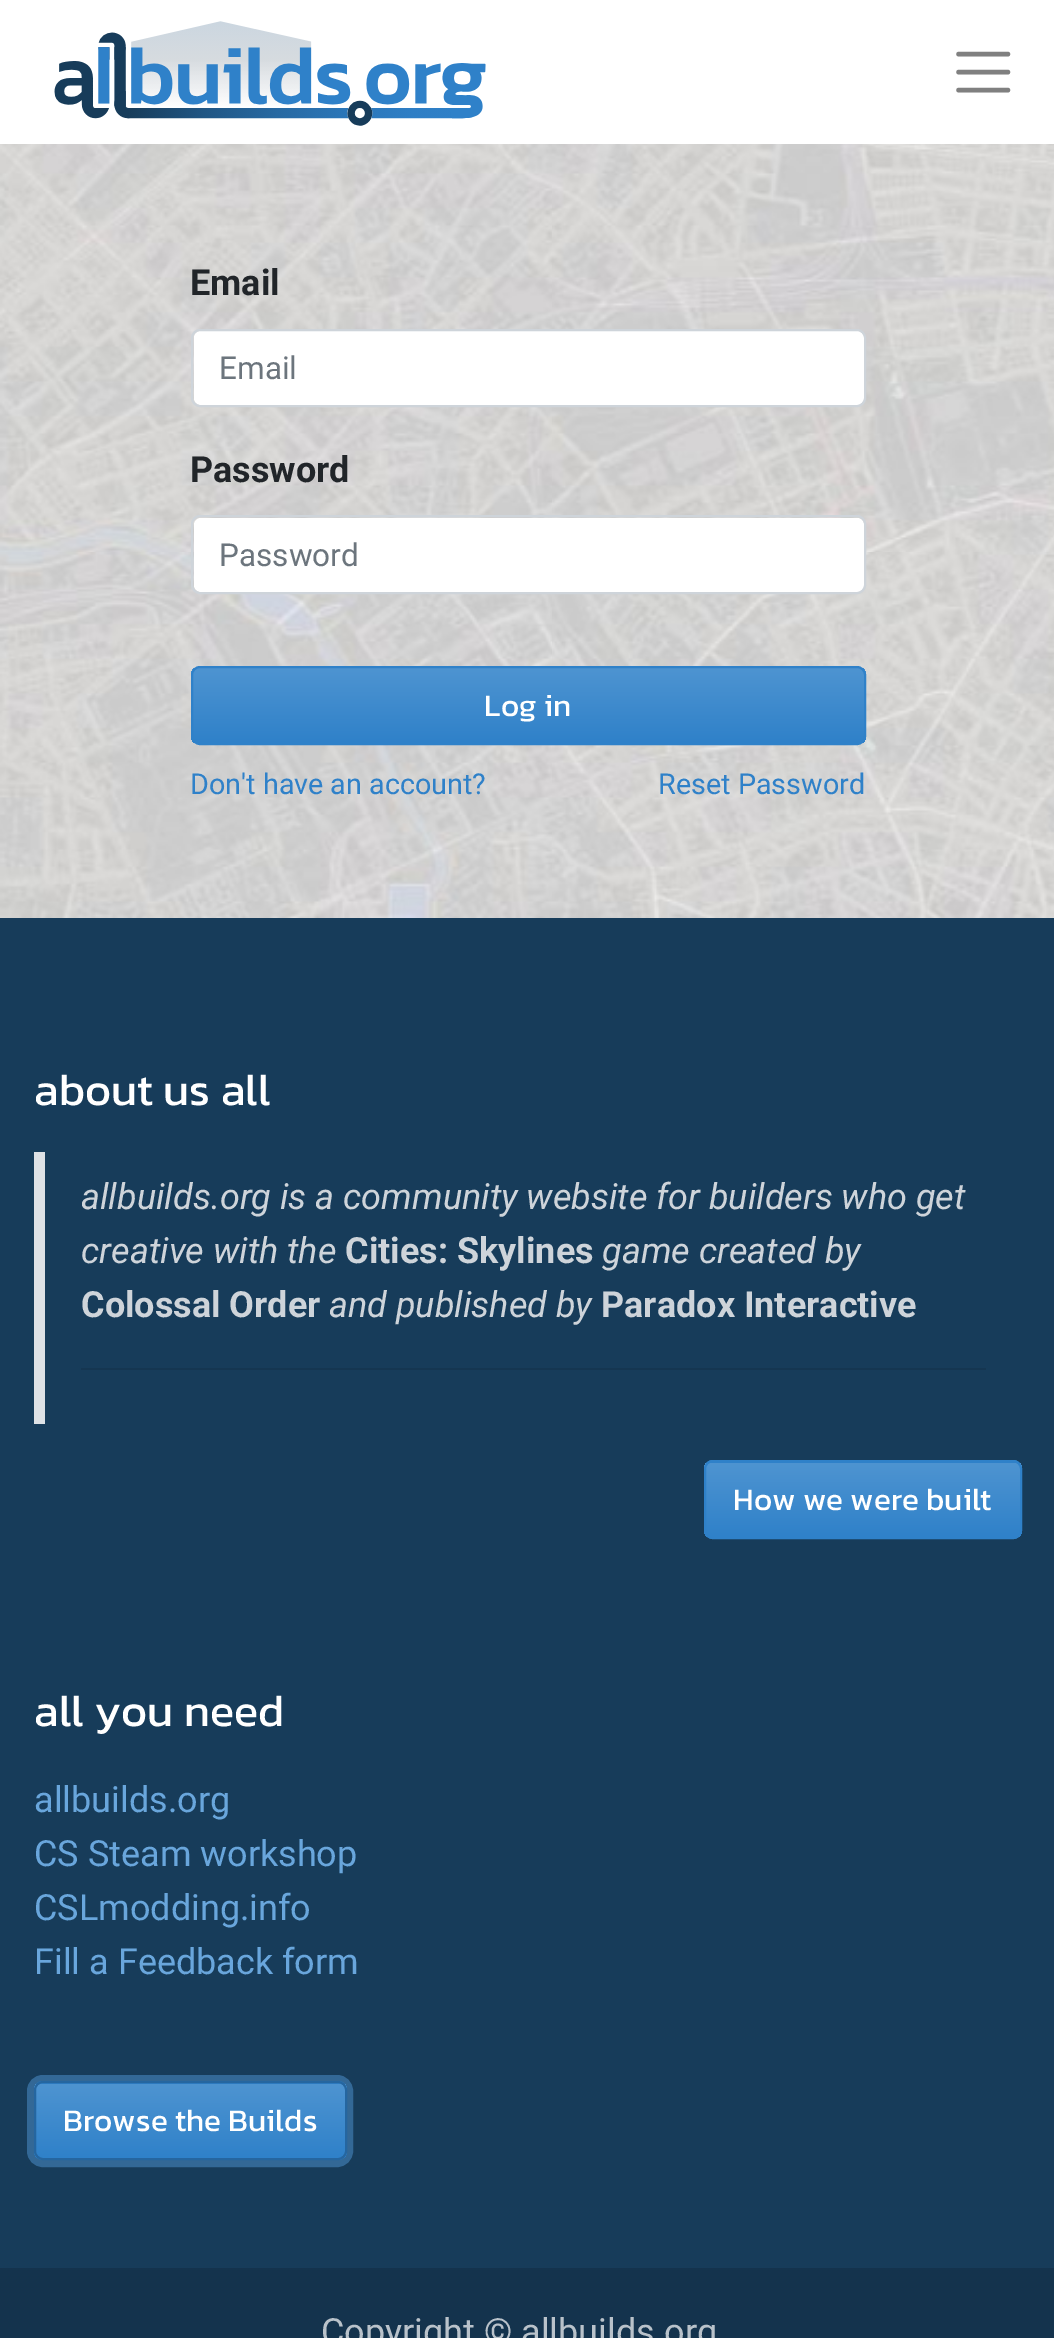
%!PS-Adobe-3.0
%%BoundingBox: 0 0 1054 2338
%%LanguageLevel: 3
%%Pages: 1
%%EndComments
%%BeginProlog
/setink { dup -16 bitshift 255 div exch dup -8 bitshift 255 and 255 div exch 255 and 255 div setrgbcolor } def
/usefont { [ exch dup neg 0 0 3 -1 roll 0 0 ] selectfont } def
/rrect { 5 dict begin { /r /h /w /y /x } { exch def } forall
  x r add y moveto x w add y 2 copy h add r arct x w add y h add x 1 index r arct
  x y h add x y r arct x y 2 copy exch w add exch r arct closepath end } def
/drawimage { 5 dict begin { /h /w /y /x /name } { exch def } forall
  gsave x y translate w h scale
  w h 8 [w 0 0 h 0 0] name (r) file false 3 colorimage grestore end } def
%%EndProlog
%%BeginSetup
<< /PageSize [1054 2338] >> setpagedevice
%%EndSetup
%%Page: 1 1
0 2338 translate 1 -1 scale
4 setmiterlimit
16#FFFFFF setink
0 0 1054 2338 rectfill
(img1.raw) 0 144 1054 774 drawimage
(img2.raw) 54 21 432 105 drawimage
16#808080 setink
4.5 setlinewidth
1 setlinecap
958.5 54 moveto 1008 54 lineto 958.5 72 moveto 1008 72 lineto 958.5 90 moveto 1008 90 lineto stroke
/Roboto-Bold 36 usefont
16#212529 setink
190 295 moveto (Email) show
16#FFFFFF setink
194 331 670 74 7 rrect fill
16#CED4DA setink
2 setlinewidth
0 setlinecap
192 330 673 76 8 rrect stroke
/Roboto-Regular 31.5 usefont
16#6C757D setink
219 379 moveto (Email) show
/Roboto-Bold 36 usefont
16#212529 setink
190 482 moveto (Password) show
16#FFFFFF setink
194 518 670 74 7 rrect fill
16#CED4DA setink
192 516 673 77 8 rrect stroke
/Roboto-Regular 31.5 usefont
16#6C757D setink
219 566 moveto (Password) show
gsave
191 666 675 79 9 rrect clip newpath
gsave 191 668 moveto 866 668 lineto 866 743 lineto 191 743 lineto closepath clip newpath
<< /ShadingType 2 /ColorSpace /DeviceRGB /Coords [529 668 529 743] /Extend [true true] /Function << /FunctionType 2 /Domain [0 1] /C0 [0.306 0.58 0.82] /C1 [0.184 0.506 0.788] /N 1 >> >> shfill grestore
grestore
16#2F81C9 setink
192 667 673 77 8 rrect stroke
/Kanit-Regular 31.5 usefont
16#FFFFFF setink
484 716 moveto (Log in) show
/Roboto-Regular 28.75 usefont
16#2F81C9 setink
190 794 moveto (Don't have an account?) show
658 794 moveto (Reset Password) show
16#173C5A setink
0 918 1054 1350 rectfill
/Kanit-Regular 45 usefont
16#FFFFFF setink
34 1105 moveto (about us all) show
16#DEE2E6 setink
34 1152 11 272 rectfill
/Roboto-Italic 36 usefont
16#CED4DA setink
81 1209 moveto (allbuilds.org is a community website for builders who get) show
81 1263 moveto (creative with the) show
/Roboto-Bold 36 usefont
345 1263 moveto (Cities: Skylines) show
/Roboto-Italic 36 usefont
602 1263 moveto (game created by) show
/Roboto-Bold 36 usefont
81 1317 moveto (Colossal Order) show
/Roboto-Italic 36 usefont
329 1317 moveto (and published by) show
/Roboto-Bold 36 usefont
601 1317 moveto (Paradox Interactive) show
16#153651 setink
81 1368 905 2 rectfill
16#2F81C9 setink
704 1460 318 79 9 rrect fill
gsave
704 1460 318 79 9 rrect clip newpath
gsave 704 1463 moveto 1022 1463 lineto 1022 1537 lineto 704 1537 lineto closepath clip newpath
<< /ShadingType 2 /ColorSpace /DeviceRGB /Coords [863 1463 863 1537] /Extend [true true] /Function << /FunctionType 2 /Domain [0 1] /C0 [0.306 0.58 0.82] /C1 [0.184 0.506 0.788] /N 1 >> >> shfill grestore
grestore
705 1461 316 77 8 rrect stroke
/Kanit-Regular 31.5 usefont
16#FFFFFF setink
733 1510 moveto (How we were built) show
/Kanit-Regular 45 usefont
34 1726 moveto (all you need) show
/Roboto-Regular 36 usefont
16#69A6DC setink
[
    [(allbuilds.org) 34 1812]
    [(CS Steam workshop) 34 1866]
    [(CSLmodding.info) 34 1920]
    [(Fill a Feedback form) 34 1974]
] { aload pop moveto show } forall
16#336896 setink
7 setlinewidth
30.5 2078.5 319 85 12.5 rrect stroke
16#2F81C9 setink
34 2081 313 79 9 rrect fill
gsave
34 2081 313 79 9 rrect clip newpath
gsave 34 2084 moveto 347 2084 lineto 347 2158 lineto 34 2158 lineto closepath clip newpath
<< /ShadingType 2 /ColorSpace /DeviceRGB /Coords [190 2084 190 2158] /Extend [true true] /Function << /FunctionType 2 /Domain [0 1] /C0 [0.306 0.58 0.82] /C1 [0.184 0.506 0.788] /N 1 >> >> shfill grestore
grestore
16#2566A0 setink
2 setlinewidth
35 2082 311 77 8 rrect stroke
/Kanit-Regular 31.5 usefont
16#FFFFFF setink
63 2131 moveto (Browse the Builds) show
16#14334D setink
0 2268 1054 70 rectfill
/Roboto-Regular 36 usefont
16#B9C2CA setink
321 2344 moveto (Copyright © allbuilds.org) show
showpage
%%EOF
